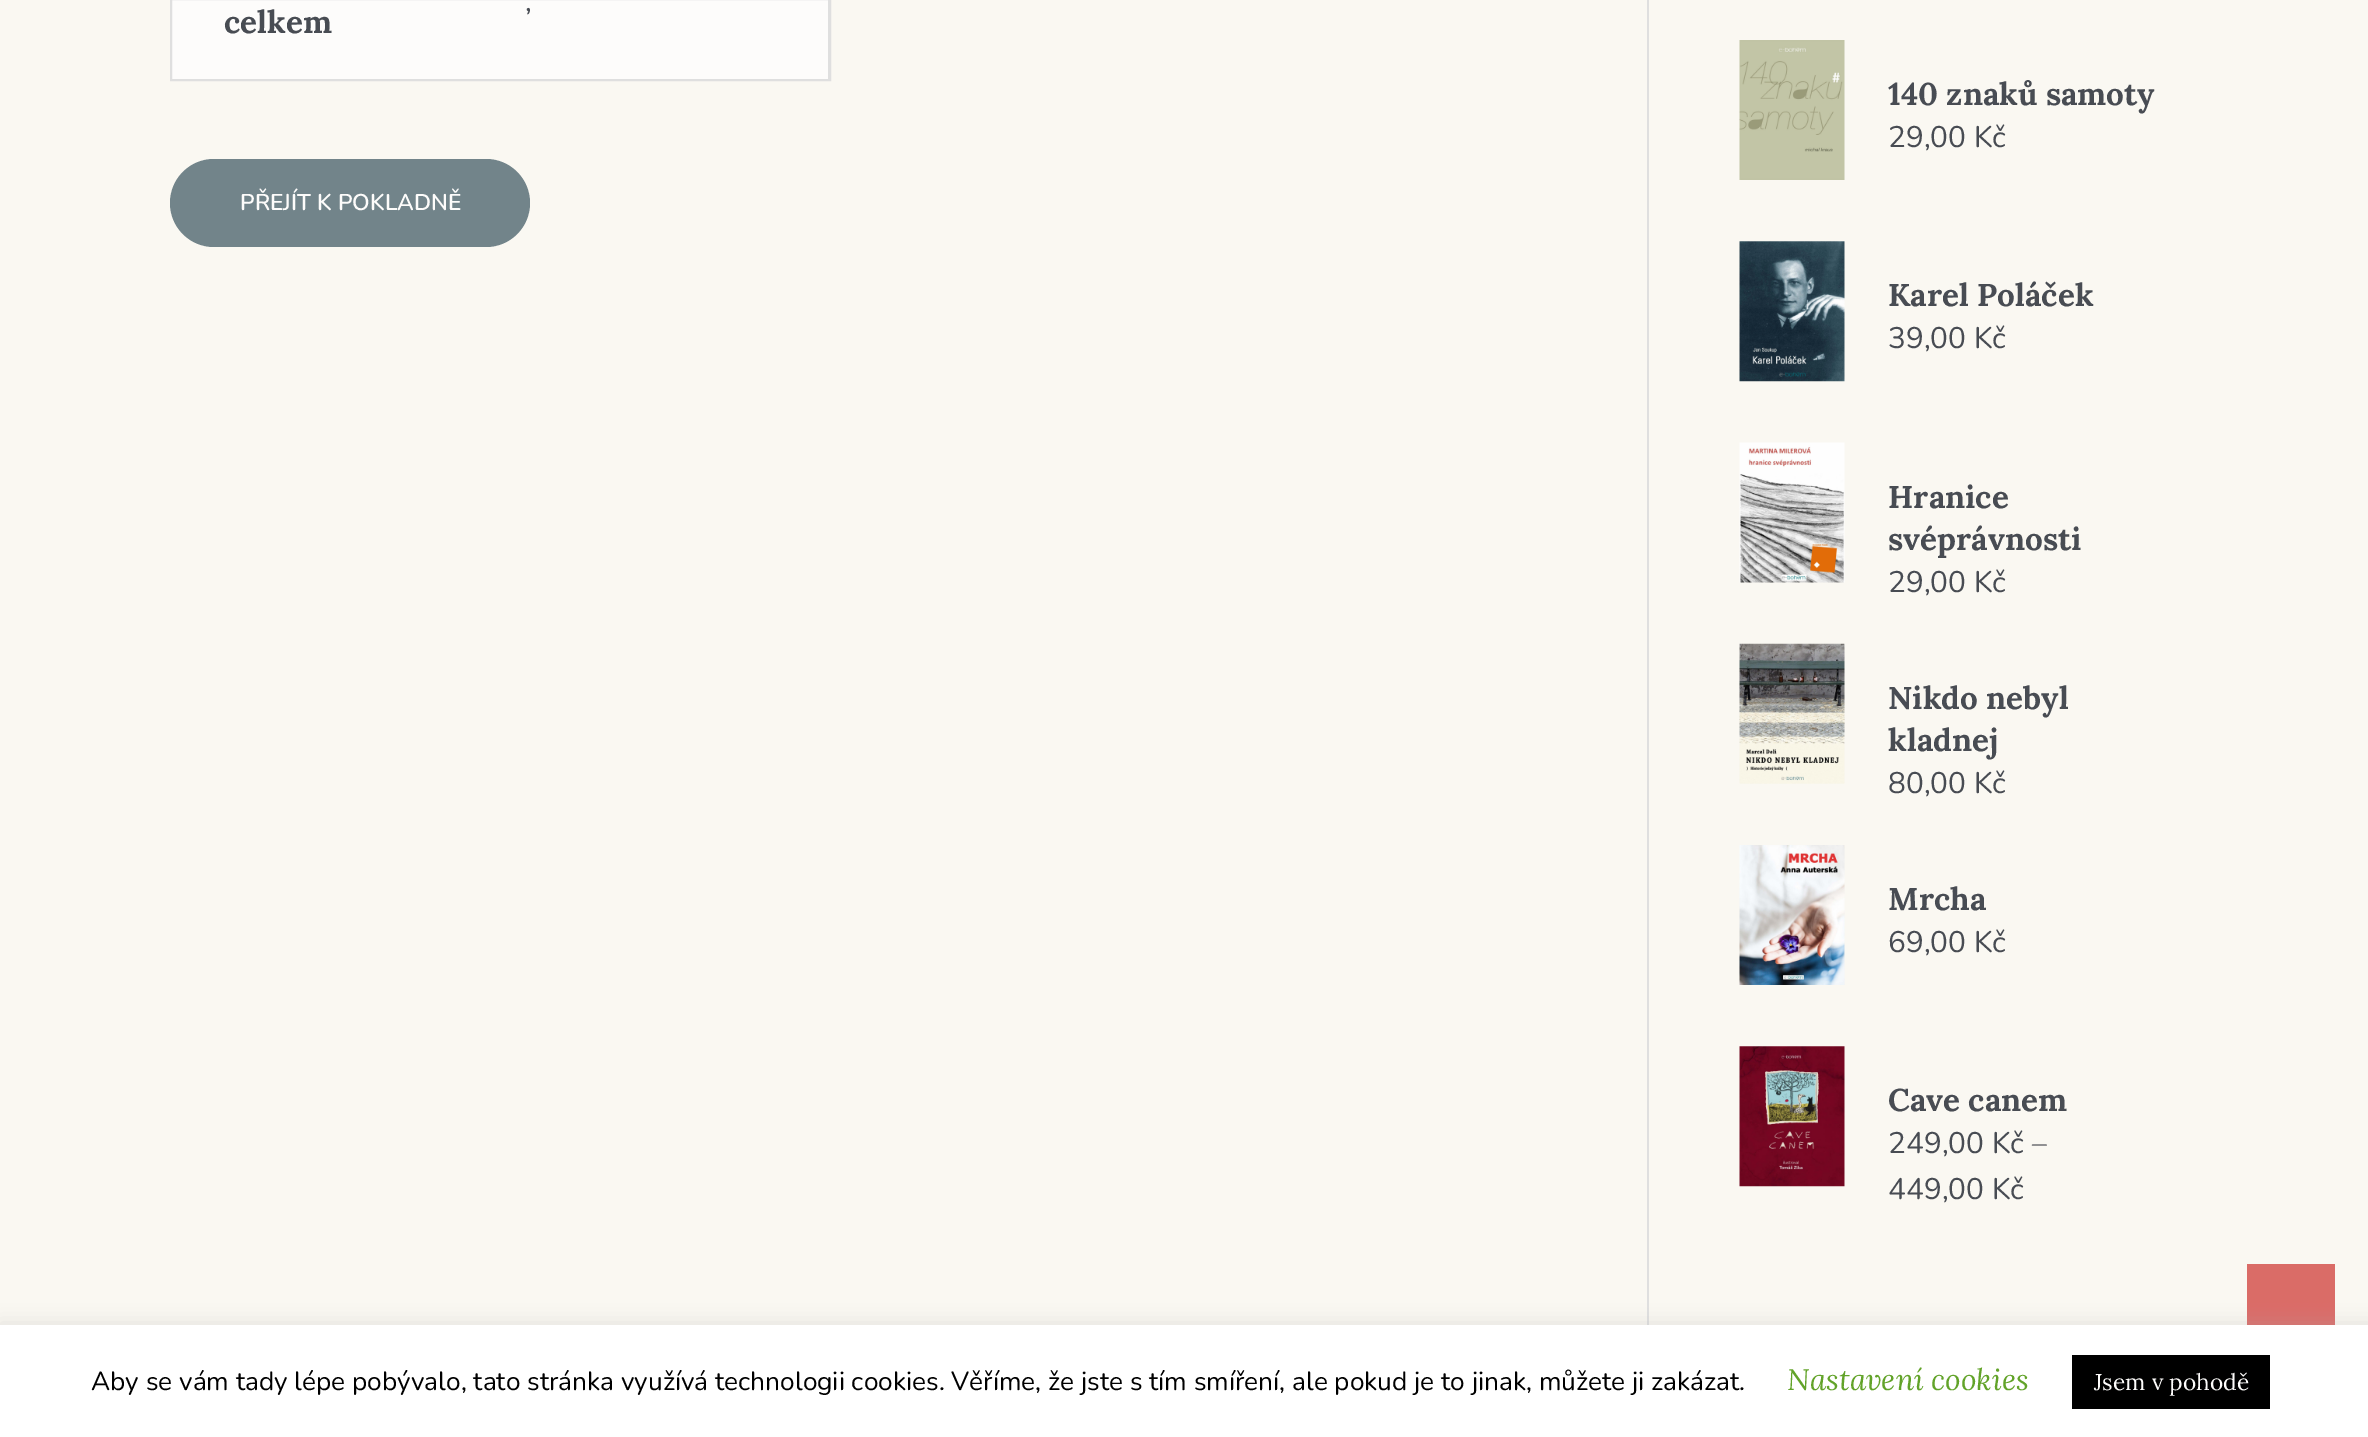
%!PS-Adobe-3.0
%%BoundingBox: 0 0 2368 1437
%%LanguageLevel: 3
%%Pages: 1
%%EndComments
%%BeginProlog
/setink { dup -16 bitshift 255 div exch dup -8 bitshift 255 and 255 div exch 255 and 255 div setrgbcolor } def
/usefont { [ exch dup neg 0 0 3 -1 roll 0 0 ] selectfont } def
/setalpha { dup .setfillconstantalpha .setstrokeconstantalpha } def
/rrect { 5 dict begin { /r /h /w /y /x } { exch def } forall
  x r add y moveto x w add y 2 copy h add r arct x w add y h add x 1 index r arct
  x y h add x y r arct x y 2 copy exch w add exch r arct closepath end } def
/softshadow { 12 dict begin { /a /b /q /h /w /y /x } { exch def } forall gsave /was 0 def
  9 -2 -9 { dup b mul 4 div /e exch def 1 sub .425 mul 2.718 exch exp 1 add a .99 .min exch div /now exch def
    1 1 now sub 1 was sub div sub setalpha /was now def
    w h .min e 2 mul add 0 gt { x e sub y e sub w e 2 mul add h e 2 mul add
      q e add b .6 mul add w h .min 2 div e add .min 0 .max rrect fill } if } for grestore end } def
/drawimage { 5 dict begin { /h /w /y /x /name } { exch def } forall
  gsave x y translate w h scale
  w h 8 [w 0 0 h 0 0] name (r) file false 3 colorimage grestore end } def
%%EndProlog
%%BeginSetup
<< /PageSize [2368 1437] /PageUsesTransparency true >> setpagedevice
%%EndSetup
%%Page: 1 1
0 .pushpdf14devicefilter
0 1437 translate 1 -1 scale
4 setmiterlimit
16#FAF8F2 setink
0 0 2368 1437 rectfill
16#FDFCFB setink
172 0 656 79 rectfill
16#DFDFDF setink
2 setlinewidth
171 -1 659 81 rectstroke
/Lora-Bold 31.5 usefont
16#484C53 setink
224 33 moveto (celkem) show
16#DFDFDF setink
828 0 1 79 rectfill
/Nunito-Regular 29.75 usefont
16#484C53 setink
525 11 moveto (,) show
16#72848A setink
170 159 360 88 44 rrect fill
/Nunito-SemiBold 22.75 usefont
16#FDFCFB setink
240 210 moveto (PŘEJÍT K POKLADNĚ) show
16#DFDFDF setink
1647 0 2 1325 rectfill
(img1.raw) 1739 40 106 140 drawimage
/Lora-Bold 31.5 usefont
16#484C53 setink
1888 105 moveto (140 znaků samoty) show
/Nunito-Regular 29.75 usefont
1888 147 moveto (29,00 Kč) show
(img2.raw) 1739 241 106 141 drawimage
/Lora-Bold 31.5 usefont
1888 306 moveto (Karel Poláček) show
/Nunito-Regular 29.75 usefont
1888 348 moveto (39,00 Kč) show
(img3.raw) 1739 442 106 141 drawimage
/Lora-Bold 31.5 usefont
1888 508 moveto (Hranice) show
1888 550 moveto (svéprávnosti) show
/Nunito-Regular 29.75 usefont
1888 592 moveto (29,00 Kč) show
(img4.raw) 1739 643 106 141 drawimage
/Lora-Bold 31.5 usefont
1888 709 moveto (Nikdo nebyl) show
1888 751 moveto (kladnej) show
/Nunito-Regular 29.75 usefont
1888 793 moveto (80,00 Kč) show
(img5.raw) 1739 845 106 140 drawimage
/Lora-Bold 31.5 usefont
1888 910 moveto (Mrcha) show
/Nunito-Regular 29.75 usefont
1888 952 moveto (69,00 Kč) show
(img6.raw) 1739 1046 106 141 drawimage
/Lora-Bold 31.5 usefont
1888 1111 moveto (Cave canem) show
/Nunito-Regular 29.75 usefont
1888 1153 moveto (249,00 Kč) show
16#6B6C70 setink
2032 1153 moveto (–) show
16#484C53 setink
1888 1199 moveto (449,00 Kč) show
16#DA6C67 setink
2247 1264 88 61 rectfill
16#ACABAB setink
0 1323 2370 114 0 9 0.3 softshadow
16#FFFFFF setink
0 1325 2368 112 rectfill
/Nunito-Regular 26.25 usefont
16#000000 setink
91 1390 moveto (Aby se vám tady lépe pobývalo, tato stránka využívá technologii cookies. Věříme, že jste s tím smíření, ale pokud je to jinak, můžete ji zakázat.) show
/Lora-Italic 29.75 usefont
16#62A329 setink
1787 1390 moveto (Nastavení cookies) show
16#000000 setink
2072 1355 198 54 rectfill
/Lora-Regular 22.75 usefont
16#FDFCFB setink
2094 1390 moveto (Jsem v pohodě) show
.poppdf14devicefilter showpage
%%EOF
